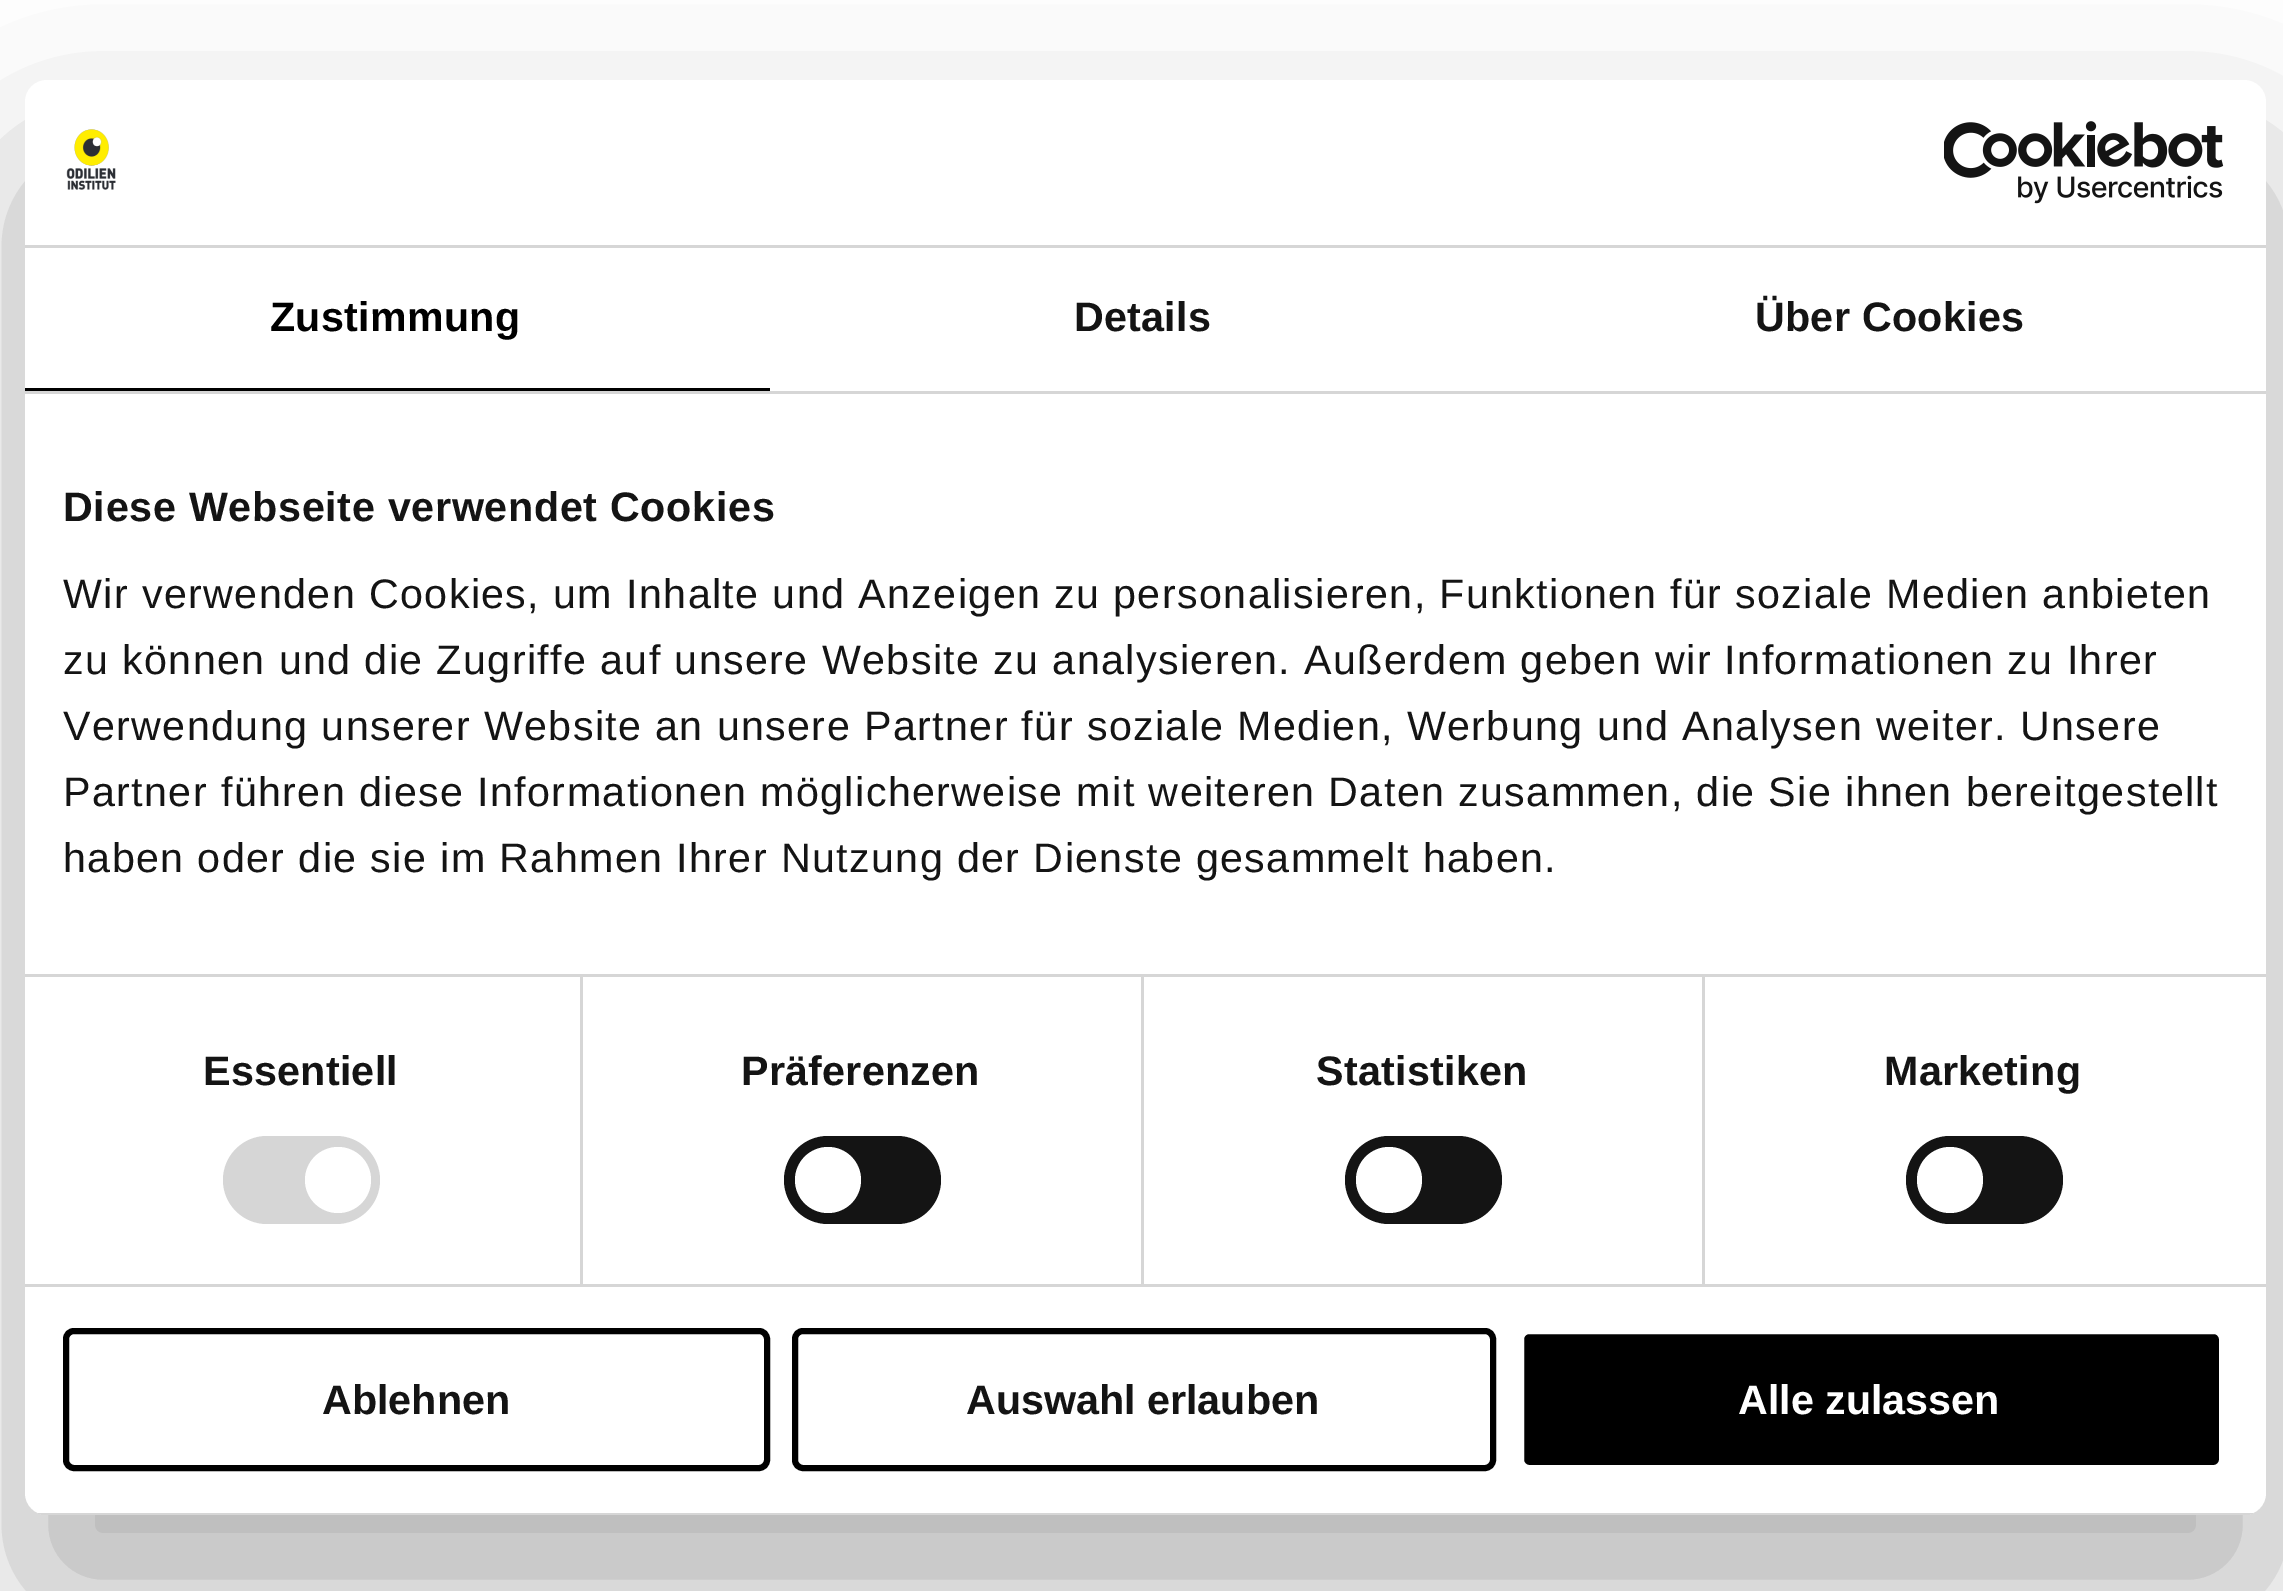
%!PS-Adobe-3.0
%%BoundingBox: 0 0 2283 1591
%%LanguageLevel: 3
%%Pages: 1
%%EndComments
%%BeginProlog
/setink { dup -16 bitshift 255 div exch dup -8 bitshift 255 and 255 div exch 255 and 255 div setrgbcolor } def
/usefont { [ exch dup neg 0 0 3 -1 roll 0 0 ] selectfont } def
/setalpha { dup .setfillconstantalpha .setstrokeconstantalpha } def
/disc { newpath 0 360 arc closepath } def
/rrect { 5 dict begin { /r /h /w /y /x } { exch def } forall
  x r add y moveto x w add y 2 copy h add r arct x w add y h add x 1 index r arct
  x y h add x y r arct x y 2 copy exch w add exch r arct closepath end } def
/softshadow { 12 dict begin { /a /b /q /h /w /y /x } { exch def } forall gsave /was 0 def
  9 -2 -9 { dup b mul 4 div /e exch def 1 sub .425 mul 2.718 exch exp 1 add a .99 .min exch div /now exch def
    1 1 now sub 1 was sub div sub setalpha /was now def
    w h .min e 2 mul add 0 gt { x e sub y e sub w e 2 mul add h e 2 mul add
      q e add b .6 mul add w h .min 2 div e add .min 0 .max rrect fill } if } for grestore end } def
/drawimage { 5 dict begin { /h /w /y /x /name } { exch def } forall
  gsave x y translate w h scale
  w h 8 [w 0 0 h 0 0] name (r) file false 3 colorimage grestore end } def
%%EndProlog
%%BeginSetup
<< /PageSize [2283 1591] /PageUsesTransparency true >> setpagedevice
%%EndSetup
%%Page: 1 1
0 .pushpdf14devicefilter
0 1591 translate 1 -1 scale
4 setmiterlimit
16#FFFFFF setink
0 0 2283 1591 rectfill
gsave
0 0 moveto 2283 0 lineto 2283 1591 lineto 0 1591 lineto closepath 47 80 moveto 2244 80 lineto 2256 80 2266 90 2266 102 curveto 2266 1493 lineto 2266 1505 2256 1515 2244 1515 curveto 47 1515 lineto 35 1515 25 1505 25 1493 curveto 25 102 lineto 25 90 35 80 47 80 curveto closepath eoclip newpath
16#000000 setink
25 168 2241 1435 22 93.5 0.3 softshadow
grestore
25 80 2241 1435 22 rrect fill
16#D6D6D6 setink
25 245 2241 3 rectfill
(img1.raw) 66 129 50 61 drawimage
(img2.raw) 1944 121 280 83 drawimage
25 391 2241 3 rectfill
16#000000 setink
25 388 745 3 rectfill
/LiberationSans-Bold 41.25 usefont
270 331 moveto 0.25 0 (Zustimmung) ashow
16#141414 setink
1074 331 moveto 0.25 0 (Details) ashow
1755 331 moveto 0.25 0 (Über Cookies) ashow
[
    [580 976 3 308 16#D6D6D6]
    [1141 976 3 308 16#D6D6D6]
    [1702 976 3 308 16#D6D6D6]
    [25 974 2241 3 16#D6D6D6]
] { aload pop setink rectfill } forall
16#141414 setink
63 521 moveto 0.7 0 (Diese Webseite verwendet Cookies) ashow
/LiberationSans-Regular 41.25 usefont
63 608 moveto 1.38 0 (Wir verwenden Cookies, um Inhalte und Anzeigen zu personalisieren, Funktionen für soziale Medien anbieten) ashow
63 674 moveto 1.38 0 (zu können und die Zugriffe auf unsere Website zu analysieren. Außerdem geben wir Informationen zu Ihrer) ashow
63 740 moveto 1.38 0 (Verwendung unserer Website an unsere Partner für soziale Medien, Werbung und Analysen weiter. Unsere) ashow
63 806 moveto 1.38 0 (Partner führen diese Informationen möglicherweise mit weiteren Daten zusammen, die Sie ihnen bereitgestellt) ashow
63 872 moveto 1.38 0 (haben oder die sie im Rahmen Ihrer Nutzung der Dienste gesammelt haben.) ashow
16#D6D6D6 setink
25 1284 2241 3 rectfill
/LiberationSans-Bold 41.25 usefont
16#141414 setink
203 1085 moveto 0.25 0 (Essentiell) ashow
16#D6D6D6 setink
223 1136 157 88 44 rrect fill
16#FFFFFF setink
338 1180 33 disc fill
16#141414 setink
741 1085 moveto 0.25 0 (Präferenzen) ashow
784 1136 157 88 44 rrect fill
16#FFFFFF setink
828 1180 33 disc fill
16#141414 setink
1316 1085 moveto 0.25 0 (Statistiken) ashow
1345 1136 157 88 44 rrect fill
16#FFFFFF setink
1389 1180 33 disc fill
16#141414 setink
1884 1085 moveto 0.25 0 (Marketing) ashow
1906 1136 157 88 44 rrect fill
16#FFFFFF setink
1950 1180 33 disc fill
gsave
25 80 2241 1435 22 rrect clip newpath
16#D6D6D6 setink
38 1513 2215 2 rectfill
grestore
16#000000 setink
6 setlinewidth
66 1331 701 137 8 rrect stroke
16#141414 setink
322 1414 moveto (Ablehnen) show
16#000000 setink
795 1331 698 137 8 rrect stroke
16#141414 setink
966 1414 moveto (Auswahl erlauben) show
16#000000 setink
1521 1331 701 137 8 rrect gsave fill grestore
16#FFFFFF setink
stroke
1738 1414 moveto (Alle zulassen) show
.poppdf14devicefilter showpage
%%EOF
